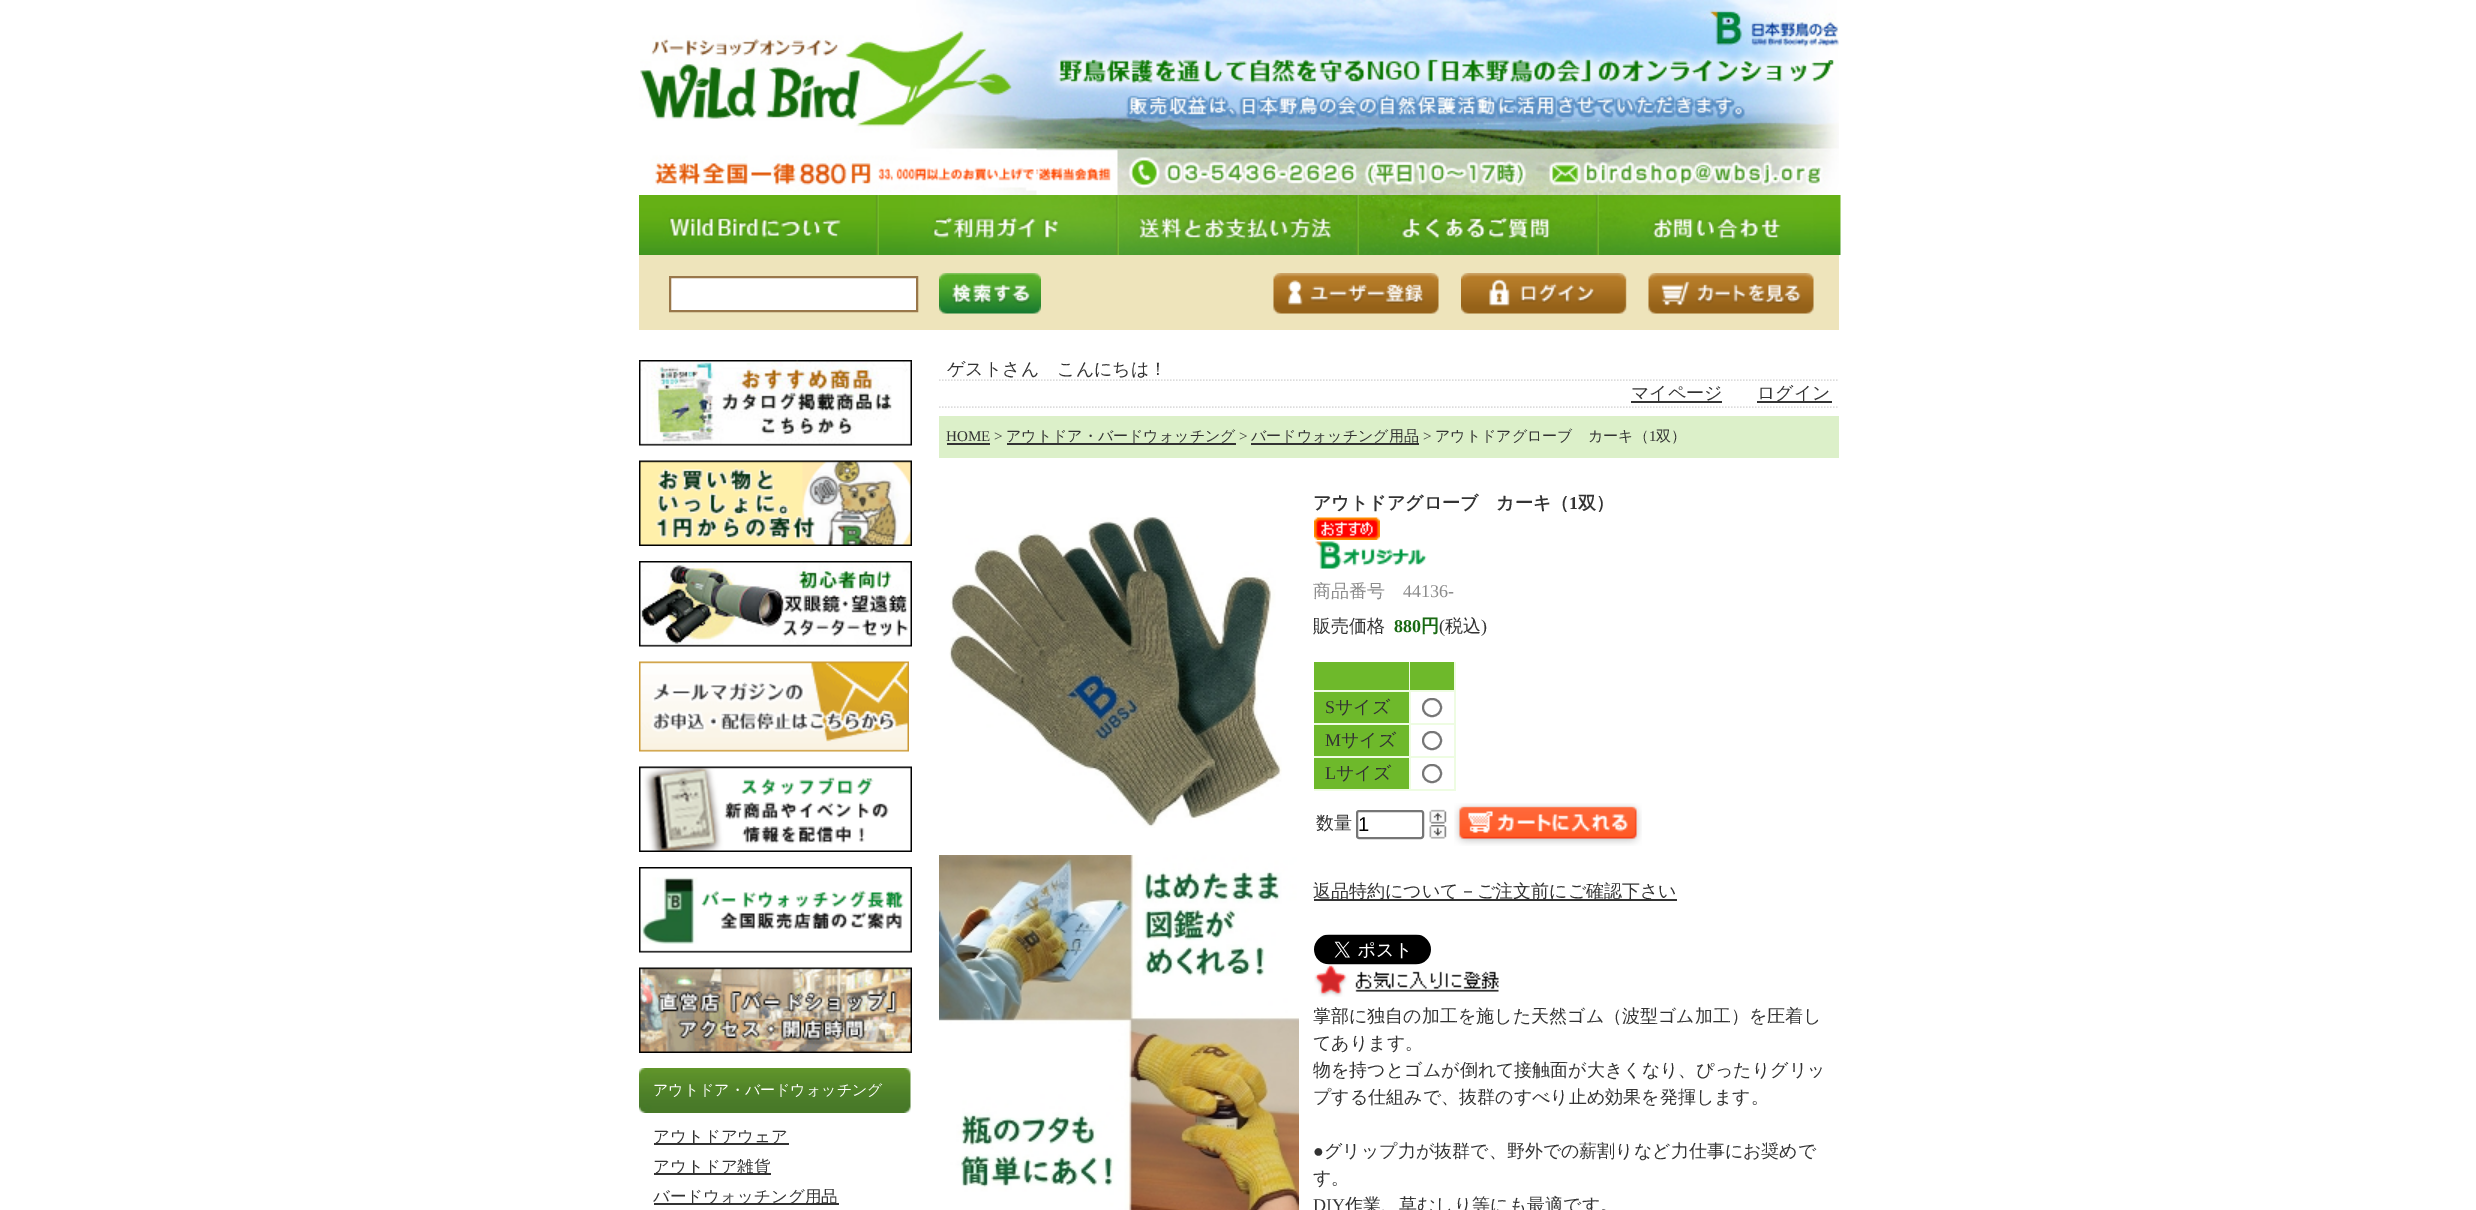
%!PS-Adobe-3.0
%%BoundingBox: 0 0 2476 1210
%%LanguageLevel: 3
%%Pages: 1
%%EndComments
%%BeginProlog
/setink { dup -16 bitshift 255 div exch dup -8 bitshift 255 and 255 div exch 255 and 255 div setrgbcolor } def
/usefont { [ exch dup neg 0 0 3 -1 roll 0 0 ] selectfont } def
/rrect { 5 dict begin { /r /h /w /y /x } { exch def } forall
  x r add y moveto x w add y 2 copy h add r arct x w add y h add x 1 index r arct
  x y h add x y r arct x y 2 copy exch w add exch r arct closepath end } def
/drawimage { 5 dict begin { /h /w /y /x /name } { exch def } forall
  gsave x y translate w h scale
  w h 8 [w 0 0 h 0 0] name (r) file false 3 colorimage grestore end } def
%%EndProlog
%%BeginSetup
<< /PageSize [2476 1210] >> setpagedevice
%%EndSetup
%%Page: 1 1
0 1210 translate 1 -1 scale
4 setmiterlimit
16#FFFFFF setink
0 0 2476 1210 rectfill
(img1.raw) 640 0 1199 195 drawimage
(img2.raw) 1704 0 135 60 drawimage
(img3.raw) 639 87 398 108 drawimage
(img4.raw) 639 195 240 60 drawimage
(img5.raw) 879 195 240 60 drawimage
(img6.raw) 1119 195 240 60 drawimage
(img7.raw) 1359 195 240 60 drawimage
(img8.raw) 1599 195 242 60 drawimage
16#EEE4BB setink
639 255 1200 75 rectfill
16#FFFFFF setink
670 277 moveto 917 277 lineto 917 311 lineto 670 311 lineto closepath gsave fill grestore
16#99774A setink
2 setlinewidth
stroke
(img9.raw) 939 273 102 41 drawimage
(img10.raw) 1273 273 166 41 drawimage
(img11.raw) 1461 273 166 41 drawimage
(img12.raw) 1648 273 166 41 drawimage
(img13.raw) 639 360 273 86 drawimage
(img14.raw) 639 460 273 86 drawimage
(img15.raw) 639 561 273 86 drawimage
(img16.raw) 639 661 270 91 drawimage
(img17.raw) 639 766 273 86 drawimage
(img18.raw) 639 867 273 86 drawimage
(img19.raw) 639 967 273 86 drawimage
(img20.raw) 639 1068 272 45 drawimage
/WenQuanYiZenHei-Medium 15 usefont
16#FFFFFF setink
653 1095 moveto (アウトドア・バードウォッチング) show
16#333333 setink
654 1143 135 2 rectfill
/WenQuanYiZenHei-Medium 16.5 usefont
653 1142 moveto (アウトドアウェア) show
654 1173 117 2 rectfill
653 1172 moveto (アウトドア雑貨) show
654 1203 185 2 rectfill
653 1202 moveto (バードウォッチング用品) show
16#DDDDDD setink
1.5 setlinewidth
[1.5 1.5] 0 setdash
939 380 moveto 1839 380 lineto stroke
/WenQuanYiZenHei-Medium 18 usefont
16#333333 setink
947 375 moveto (ゲストさん　こんにちは！) show
16#DDDDDD setink
939 407 moveto 1839 407 lineto stroke
16#333333 setink
1631 401 91 2 rectfill
1631 399 moveto (マイページ) show
1757 401 75 2 rectfill
1757 399 moveto (ログイン) show
16#DCF0C9 setink
939 416 900 42 rectfill
/LiberationSerif-Regular 15 usefont
16#333333 setink
946 441 moveto (HOME >) show
947 443 43 2 rectfill
/WenQuanYiZenHei-Medium 15 usefont
1006 441 moveto (アウトドア・バードウォッチング) show
1007 443 229 2 rectfill
/LiberationSerif-Regular 15 usefont
1239 441 moveto (>) show
/WenQuanYiZenHei-Medium 15 usefont
1251 441 moveto (バードウォッチング用品) show
1251 443 168 2 rectfill
/LiberationSerif-Regular 15 usefont
1423 441 moveto (>) show
/WenQuanYiZenHei-Medium 15 usefont
1435 441 moveto (アウトドアグローブ　カーキ（) show
/LiberationSerif-Regular 15 usefont
1649 441 moveto (1) show
/WenQuanYiZenHei-Medium 15 usefont
1656 441 moveto (双）) show
(img21.raw) 949 517 333 311 drawimage
(img22.raw) 939 855 360 355 drawimage
/WenQuanYiZenHei-Bold 18 usefont
1313 509 moveto (アウトドアグローブ　カーキ（) show
/LiberationSerif-Bold 18 usefont
1569 509 moveto (1) show
/WenQuanYiZenHei-Bold 18 usefont
1578 509 moveto (双）) show
(img23.raw) 1314 517 66 23 drawimage
(img24.raw) 1315 541 112 28 drawimage
/WenQuanYiZenHei-Medium 18 usefont
16#8C8C8C setink
1313 597 moveto (商品番号) show
/LiberationSerif-Regular 18 usefont
1403 597 moveto (44136-) show
/WenQuanYiZenHei-Medium 18 usefont
16#333333 setink
1313 632 moveto (販売価格) show
/LiberationSerif-Bold 18 usefont
16#186912 setink
1394 632 moveto (880) show
/WenQuanYiZenHei-Bold 18 usefont
1421 632 moveto (円) show
/LiberationSerif-Regular 18 usefont
16#333333 setink
1439 632 moveto (\() show
/WenQuanYiZenHei-Medium 18 usefont
1445 632 moveto (税込) show
/LiberationSerif-Regular 18 usefont
1481 632 moveto (\)) show
[
    [1314 662 95 28 16#6EB92B]
    [1409 662 1 30 16#EEFCE2]
    [1314 690 96 2 16#EEFCE2]
    [1410 662 44 28 16#6EB92B]
    [1454 662 2 129 16#EEFCE2]
    [1410 690 45 2 16#EEFCE2]
    [1314 692 95 31 16#6EB92B]
    [1409 692 2 99 16#EEFCE2]
    [1314 723 141 2 16#EEFCE2]
] { aload pop setink rectfill } forall
16#333333 setink
1325 713 moveto (S) show
/WenQuanYiZenHei-Medium 18 usefont
1335 713 moveto (サイズ) show
16#767676 setink
2 setlinewidth
[] 0 setdash
1423 699 18 17 8.5 rrect stroke
16#6EB92B setink
1314 725 95 31 rectfill
16#EEFCE2 setink
1314 756 141 2 rectfill
/LiberationSerif-Regular 18 usefont
16#333333 setink
1325 746 moveto (M) show
/WenQuanYiZenHei-Medium 18 usefont
1341 746 moveto (サイズ) show
16#767676 setink
1423 732 18 17 8.5 rrect stroke
16#6EB92B setink
1314 758 95 31 rectfill
16#EEFCE2 setink
1314 789 141 2 rectfill
/LiberationSerif-Regular 18 usefont
16#333333 setink
1325 779 moveto (L) show
/WenQuanYiZenHei-Medium 18 usefont
1336 779 moveto (サイズ) show
16#767676 setink
1423 765 18 17 8.5 rrect stroke
16#333333 setink
1316 829 moveto (数量) show
16#767676 setink
1357 811 66 27 2 rrect stroke
/LiberationSans-Regular 20 usefont
16#000000 setink
1358 831 moveto (1) show
(img25.raw) 1429 809 18 15 drawimage
(img26.raw) 1429 825 18 14 drawimage
(img27.raw) 1454 803 188 43 drawimage
16#333333 setink
1314 899 363 2 rectfill
/WenQuanYiZenHei-Medium 18 usefont
1313 897 moveto (返品特約について－ご注文前にご確認下さい) show
(img28.raw) 1314 934 117 31 drawimage
(img29.raw) 1314 965 185 32 drawimage
[
    [(掌部に独自の加工を施した天然ゴム（波型ゴム加工）を圧着し) 1313 1022]
    [(てあります。) 1313 1049]
    [(物を持つとゴムが倒れて接触面が大きくなり、ぴったりグリッ) 1313 1076]
    [(プする仕組みで、抜群のすべり止め効果を発揮します。) 1313 1103]
] { aload pop moveto show } forall
/LiberationSerif-Regular 18 usefont
1313 1157 moveto (●) show
/WenQuanYiZenHei-Medium 18 usefont
1324 1157 moveto (グリップ力が抜群で、野外での薪割りなど力仕事にお奨めで) show
1313 1184 moveto (す。) show
/LiberationSerif-Regular 18 usefont
1313 1211 moveto (DIY) show
/WenQuanYiZenHei-Medium 18 usefont
1345 1211 moveto (作業、草むしり等にも最適です。) show
showpage
%%EOF
